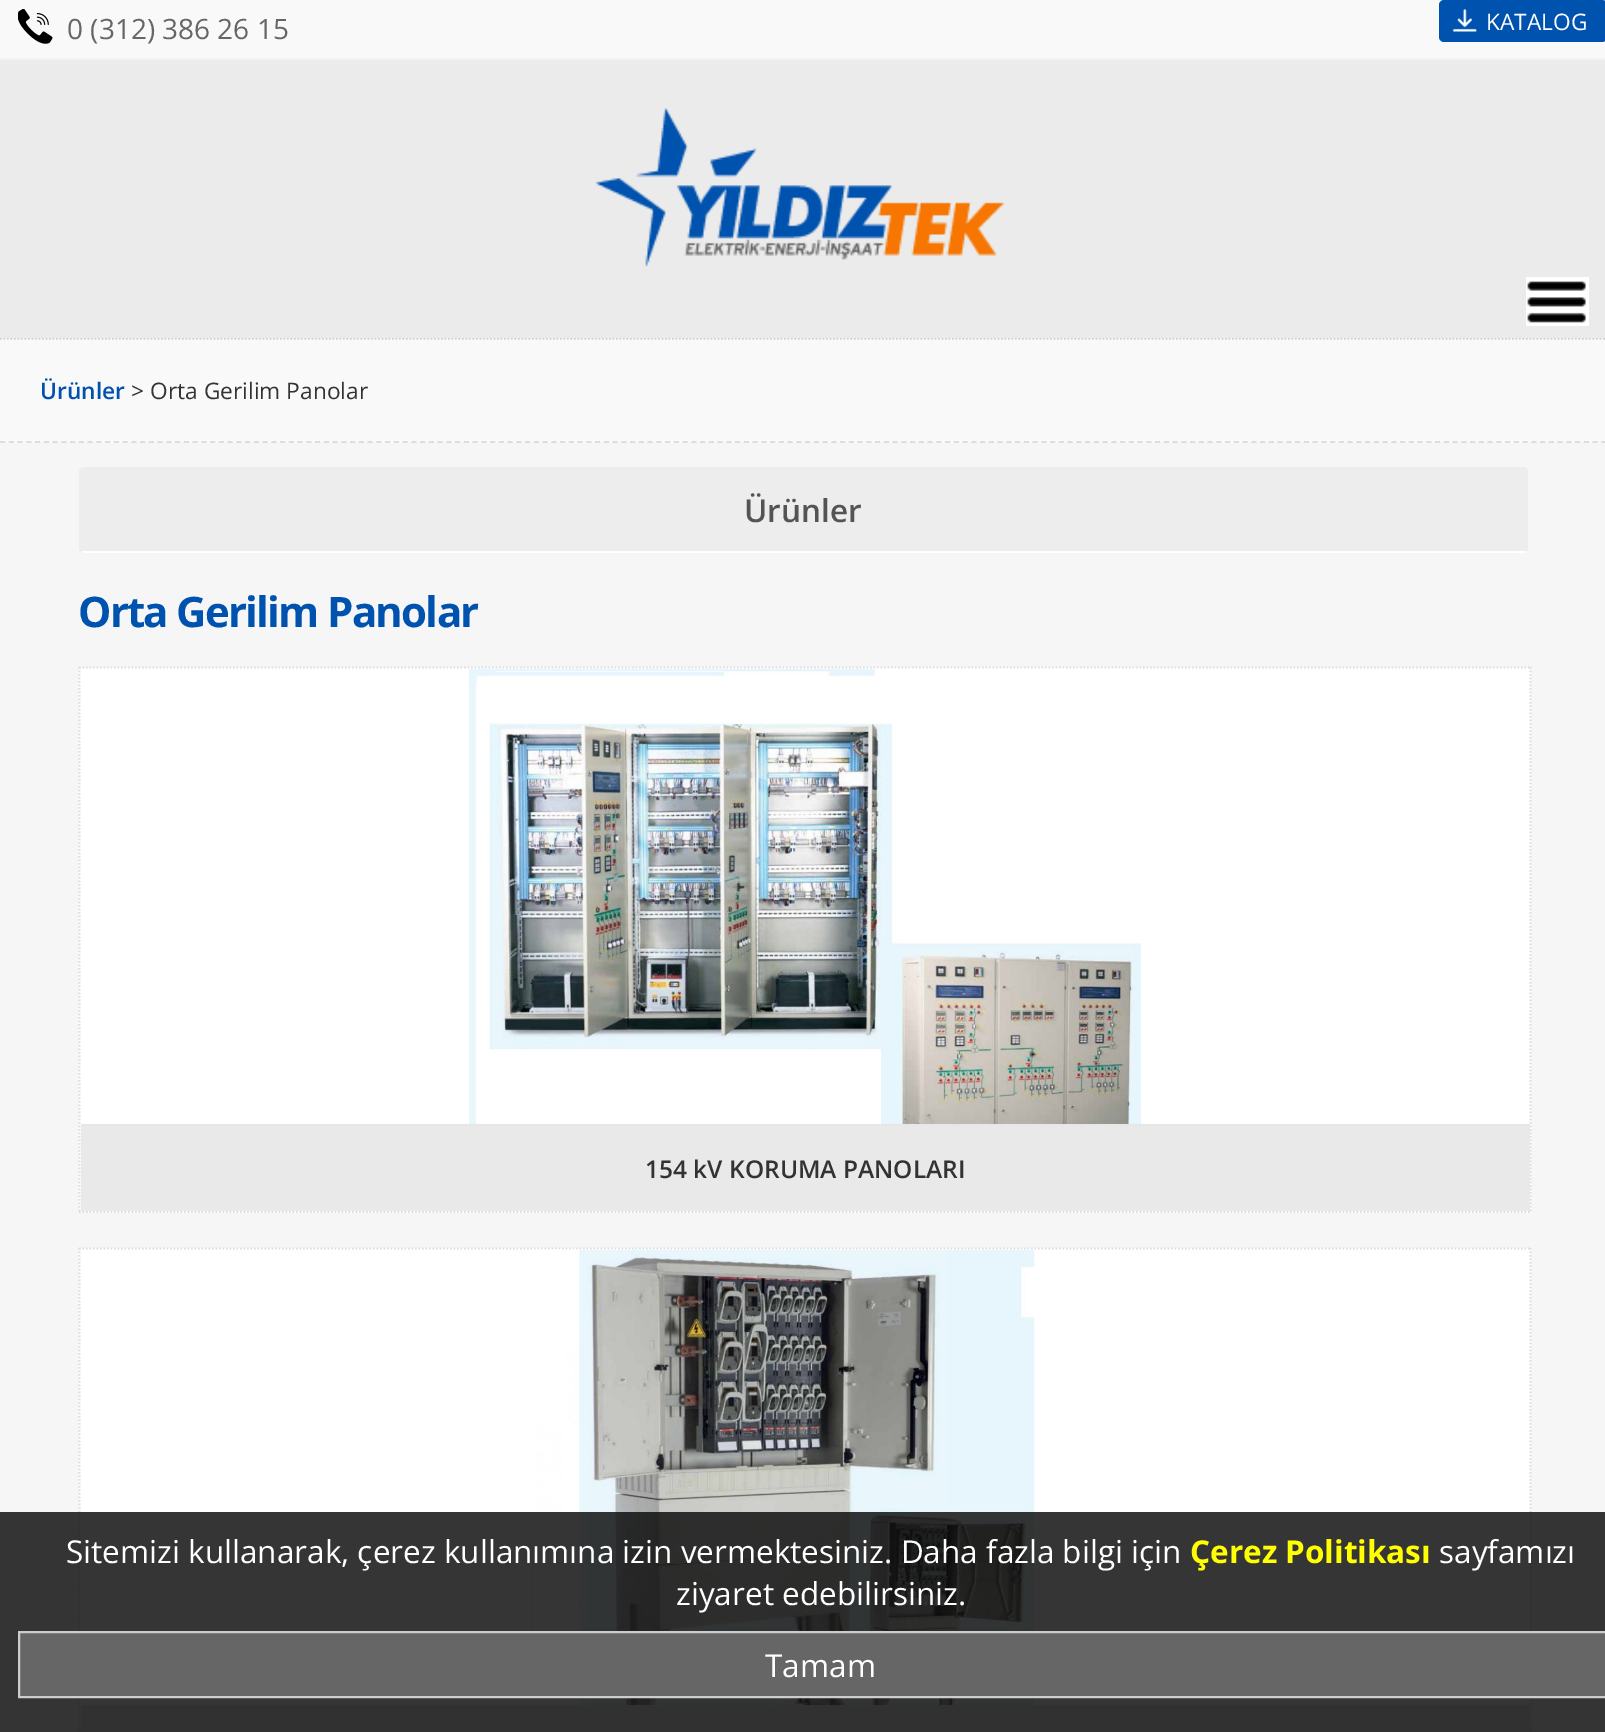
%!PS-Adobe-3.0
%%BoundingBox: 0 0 1605 1732
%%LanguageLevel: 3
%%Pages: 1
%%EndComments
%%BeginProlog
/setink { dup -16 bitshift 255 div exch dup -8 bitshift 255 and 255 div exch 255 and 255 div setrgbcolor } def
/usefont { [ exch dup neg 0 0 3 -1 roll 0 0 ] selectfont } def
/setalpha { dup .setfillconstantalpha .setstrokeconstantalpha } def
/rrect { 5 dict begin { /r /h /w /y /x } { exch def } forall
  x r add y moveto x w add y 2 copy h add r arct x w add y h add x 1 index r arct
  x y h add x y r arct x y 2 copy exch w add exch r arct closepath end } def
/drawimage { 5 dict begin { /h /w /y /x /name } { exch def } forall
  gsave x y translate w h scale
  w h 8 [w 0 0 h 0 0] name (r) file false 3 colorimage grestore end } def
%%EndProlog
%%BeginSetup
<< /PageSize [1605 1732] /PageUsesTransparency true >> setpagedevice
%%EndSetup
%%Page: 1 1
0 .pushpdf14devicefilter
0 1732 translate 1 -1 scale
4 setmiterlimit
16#F6F6F6 setink
0 0 1605 1732 rectfill
16#CCCCCC setink
1.8 setlinewidth
[1.75 1.75] 0 setdash
0 338.5 moveto 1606.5 338.5 lineto stroke
[
    [0 60 1605 278 16#EBEBEB]
    [0 0 1605 58 16#F9F9F9]
    [0 58 1605 2 16#F3F3F3]
] { aload pop setink rectfill } forall
(img1.raw) 18 9 35 35 drawimage
/OpenSans-Regular 28 usefont
16#666666 setink
67 39 moveto (0 \(312\) 386 26 15) show
16#0052AF setink
1439 0 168 42 5 rrect fill
(img2.raw) 1452 8 25 24 drawimage
/OpenSans-Regular 22.75 usefont
16#FFFFFF setink
1486 30 moveto (KATALOG) show
(img3.raw) 595 108 410 159 drawimage
1526 277 63 49 rectfill
(img4.raw) 1527 281 59 42 drawimage
16#F9F9F9 setink
0 340 1605 103 rectfill
16#DDDDDD setink
[5.25 3.5] 0 setdash
0 442 moveto 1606.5 442 lineto stroke
/OpenSans-SemiBold 22.75 usefont
16#0052AF setink
40 399 moveto (Ürünler) show
/OpenSans-Regular 22.75 usefont
16#333333 setink
131 399 moveto (> Orta Gerilim Panolar) show
16#EDEDED setink
79 467 1449 86 5 rrect fill
16#FFFFFF setink
82 551 1444 2 rectfill
/OpenSans-SemiBold 31.5 usefont
16#545454 setink
744 522 moveto (Ürünler) show
/OpenSans-Bold 42 usefont
16#0052AF setink
78 627 moveto -1.75 0 (Orta Gerilim Panolar) ashow
16#FFFFFF setink
79 667 1452 546 rectfill
16#DDDDDD setink
[1.75 1.75] 0 setdash
79 667.5 moveto 1531 667.5 lineto stroke
1530.5 667 moveto 1530.5 1213 lineto stroke
79 1212 moveto 1531 1212 lineto stroke
79.5 667 moveto 79.5 1213 lineto stroke
(img5.raw) 469 668 672 456 drawimage
16#E9E9E9 setink
81 1126 1449 85 rectfill
16#E7E7E7 setink
81 1124 1449 2 rectfill
/OpenSans-SemiBold 24.5 usefont
16#333333 setink
645 1178 moveto (154 kV KORUMA PANOLARI) show
16#FFFFFF setink
79 1248 1452 484 rectfill
16#DDDDDD setink
79 1248.5 moveto 1531 1248.5 lineto stroke
1530.5 1248 moveto 1530.5 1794 lineto stroke
79.5 1248 moveto 79.5 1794 lineto stroke
(img6.raw) 531 1249 504 456 drawimage
[
    [81 1707 1449 25 16#E9E9E9]
    [81 1705 1449 2 16#E7E7E7]
] { aload pop setink rectfill } forall
0.82 setalpha
[
    [0 1512 1605 220 16#090909]
] { aload pop setink rectfill } forall
/OpenSans-Regular 31.5 usefont
1 setalpha
16#FFFFFF setink
66 1563 moveto (Sitemizi kullanarak, çerez kullanımına izin vermektesiniz. Daha fazla bilgi için) show
/OpenSans-Bold 31.5 usefont
16#FFFF00 setink
1190 1563 moveto (Çerez Politikası) show
/OpenSans-Regular 31.5 usefont
16#FFFFFF setink
1439 1563 moveto (sayfamızı) show
676 1605 moveto (ziyaret edebilirsiniz.) show
16#666666 setink
19 1632 moveto 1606 1632 lineto 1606 1697 lineto 19 1697 lineto closepath gsave fill grestore
16#CCCCCC setink
2 setlinewidth
[] 0 setdash
stroke
16#FFFFFF setink
765 1677 moveto (Tamam) show
.poppdf14devicefilter showpage
%%EOF
